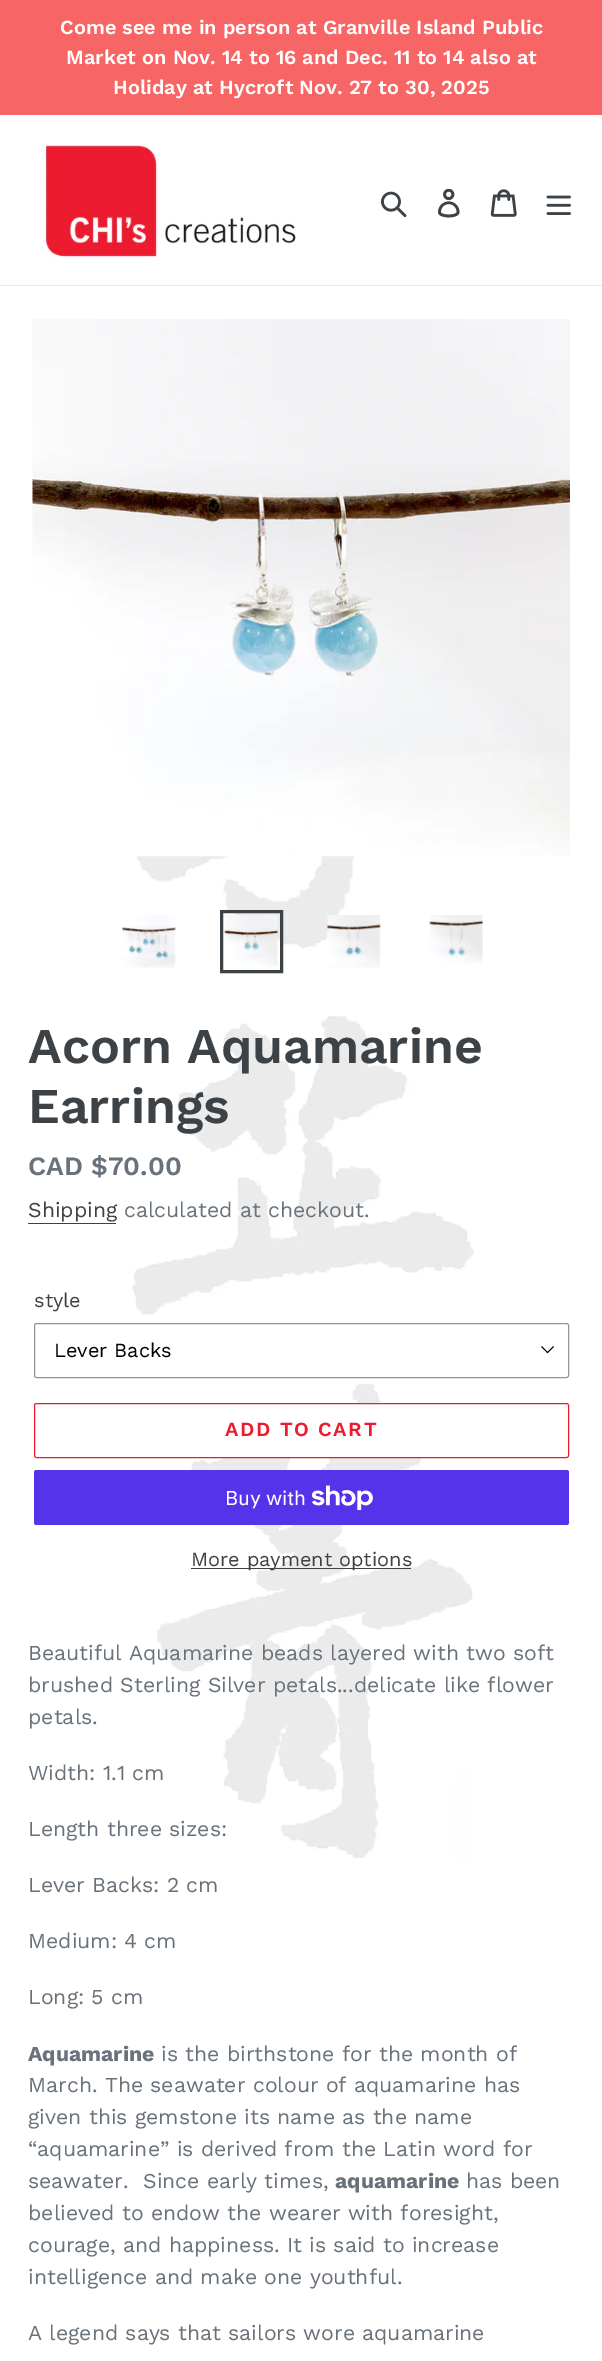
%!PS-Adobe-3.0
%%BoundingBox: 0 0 602 2361
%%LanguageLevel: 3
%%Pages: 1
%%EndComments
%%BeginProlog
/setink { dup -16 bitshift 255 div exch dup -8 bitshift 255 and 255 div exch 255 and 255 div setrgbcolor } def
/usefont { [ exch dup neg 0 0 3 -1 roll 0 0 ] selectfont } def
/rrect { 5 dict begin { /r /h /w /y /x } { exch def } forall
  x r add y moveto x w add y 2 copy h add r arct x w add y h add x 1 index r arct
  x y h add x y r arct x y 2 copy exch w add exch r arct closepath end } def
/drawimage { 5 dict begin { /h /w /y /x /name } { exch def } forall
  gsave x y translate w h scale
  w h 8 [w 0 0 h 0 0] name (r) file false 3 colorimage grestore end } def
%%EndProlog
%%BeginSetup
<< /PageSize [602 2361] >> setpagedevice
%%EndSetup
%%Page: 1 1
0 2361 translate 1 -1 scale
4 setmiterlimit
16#FFFFFF setink
0 0 602 2361 rectfill
(img1.raw) 132 856 342 1003 drawimage
16#F86565 setink
0 0 602 115 rectfill
/WorkSans-SemiBold 20 usefont
16#FFFFFF setink
[
    [(Come see me in person at Granville Island Public) 60 34]
    [(Market on Nov. 14 to 16 and Dec. 11 to 14 also at) 66 64]
    [(Holiday at Hycroft Nov. 27 to 30, 2025) 113 94]
] { aload pop moveto show } forall
16#E8E9EB setink
0 285 602 1 rectfill
(img2.raw) 42 144 254 117 drawimage
(img3.raw) 381 191 26 27 drawimage
(img4.raw) 438 189 22 29 drawimage
(img5.raw) 490 189 27 28 drawimage
(img6.raw) 546 195 25 20 drawimage
(img7.raw) 32 319 538 538 drawimage
(img8.raw) 122 915 54 53 drawimage
16#3D4246 setink
3 setlinewidth
221.5 911.5 60 60 rectstroke
(img9.raw) 224 915 54 52 drawimage
(img10.raw) 327 915 54 53 drawimage
(img11.raw) 429 915 54 49 drawimage
/WorkSans-SemiBold 50 usefont
28 1063 moveto (Acorn Aquamarine) show
28 1123 moveto (Earrings) show
/WorkSans-SemiBold 26.5 usefont
16#69727B setink
28 1175 moveto (CAD $70.00) show
/WorkSans-Regular 21.25 usefont
16#3D4246 setink
28 1217 moveto (Shipping) show
28 1223 88 1 rectfill
16#69727B setink
124 1217 moveto (calculated at checkout.) show
/WorkSans-Regular 20 usefont
16#3D4246 setink
34 1307 moveto (style) show
(img12.raw) 541 1346 13 8 drawimage
16#949494 setink
1 setlinewidth
34.5 1323.5 534 54 2 rrect stroke
16#000000 setink
54 1357 moveto (Lever Backs) show
16#FFFFFF setink
34.5 1403.5 534 54 2 rrect gsave fill grestore
16#ED1B2F setink
stroke
/WorkSans-SemiBold 20 usefont
225 1436 moveto 1.6 0 (ADD TO CART) ashow
16#5433EB setink
34 1470 535 55 2.5 rrect fill
/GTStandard-Regular 20 usefont
16#FFFFFF setink
225 1505 moveto (Buy with) show
(img13.raw) 311 1485 62 25 drawimage
16#3D4246 setink
191 1568 220 1 rectfill
/WorkSans-Regular 20 usefont
191 1566 moveto (More payment options) show
/WorkSans-Regular 21.25 usefont
16#69727B setink
[
    [(Beautiful Aquamarine beads layered with two soft) 28 1660]
    [(brushed Sterling Silver petals...delicate like flower) 28 1692]
    [(petals.) 28 1724]
    [(Width: 1.1 cm) 28 1780]
    [(Length three sizes:) 28 1836]
    [(Lever Backs: 2 cm) 28 1892]
    [(Medium: 4 cm) 28 1948]
    [(Long: 5 cm) 28 2004]
] { aload pop moveto show } forall
/WorkSans-Bold 21.25 usefont
28 2061 moveto (Aquamarine) show
/WorkSans-Regular 21.25 usefont
[
    [(is the birthstone for the month of) 161 2061]
    [(March. The seawater colour of aquamarine has) 28 2092]
    [(given this gemstone its name as the name) 28 2124]
    [(“aquamarine” is derived from the Latin word for) 28 2156]
    [(seawater.) 28 2188]
    [(Since early times,) 143 2188]
] { aload pop moveto show } forall
/WorkSans-Bold 21.25 usefont
335 2188 moveto (aquamarine) show
/WorkSans-Regular 21.25 usefont
[
    [(has been) 466 2188]
    [(believed to endow the wearer with foresight,) 28 2220]
    [(courage, and happiness. It is said to increase) 28 2252]
    [(intelligence and make one youthful.) 28 2284]
    [(A legend says that sailors wore aquamarine) 28 2340]
] { aload pop moveto show } forall
showpage
%%EOF
